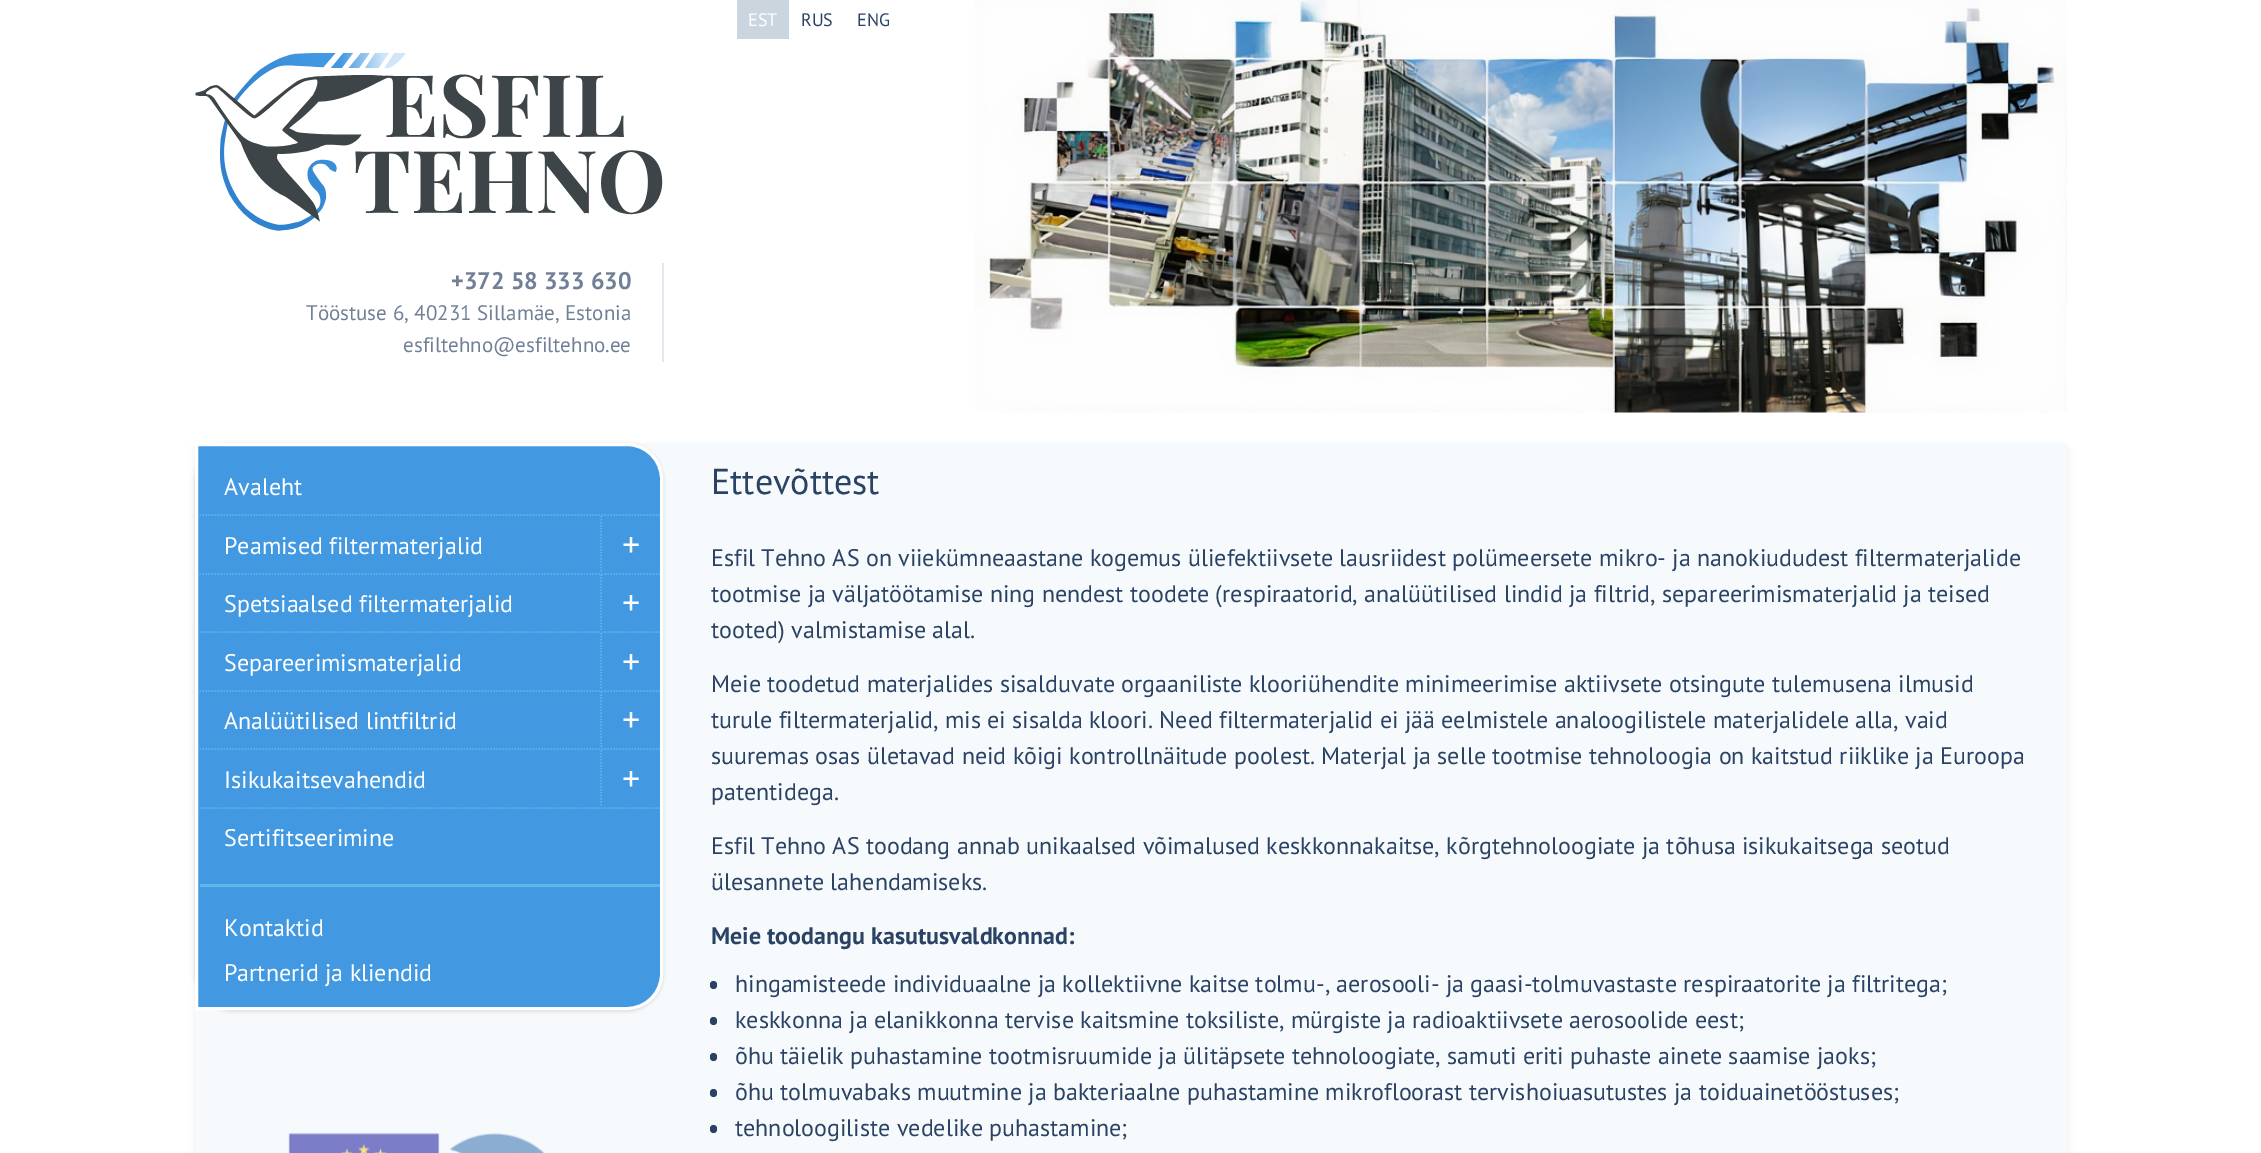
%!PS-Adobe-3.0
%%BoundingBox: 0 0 2261 1153
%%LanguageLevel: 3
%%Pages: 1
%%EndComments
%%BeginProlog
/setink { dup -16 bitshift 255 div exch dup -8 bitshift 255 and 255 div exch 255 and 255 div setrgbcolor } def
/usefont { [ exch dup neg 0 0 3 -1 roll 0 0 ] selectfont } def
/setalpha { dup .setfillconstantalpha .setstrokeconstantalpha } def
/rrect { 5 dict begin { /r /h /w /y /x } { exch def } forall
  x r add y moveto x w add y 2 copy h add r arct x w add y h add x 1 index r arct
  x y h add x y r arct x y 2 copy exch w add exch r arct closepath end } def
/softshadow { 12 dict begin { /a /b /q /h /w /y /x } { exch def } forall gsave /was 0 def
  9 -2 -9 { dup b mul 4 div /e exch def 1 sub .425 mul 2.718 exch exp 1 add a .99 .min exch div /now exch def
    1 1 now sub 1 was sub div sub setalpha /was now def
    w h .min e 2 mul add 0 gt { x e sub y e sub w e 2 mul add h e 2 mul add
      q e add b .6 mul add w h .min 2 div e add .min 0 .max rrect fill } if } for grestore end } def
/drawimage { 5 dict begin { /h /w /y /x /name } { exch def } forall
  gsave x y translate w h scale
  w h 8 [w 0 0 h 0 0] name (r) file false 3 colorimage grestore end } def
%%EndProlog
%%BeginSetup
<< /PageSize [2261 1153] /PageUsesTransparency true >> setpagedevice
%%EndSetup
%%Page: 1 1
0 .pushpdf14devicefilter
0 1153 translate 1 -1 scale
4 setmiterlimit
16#FFFFFF setink
0 0 2261 1153 rectfill
16#CBD5E0 setink
737 0 52 39 rectfill
/PTSans-Regular 18 usefont
16#FFFFFF setink
748 26 moveto (EST) show
16#2A4365 setink
801 26 moveto (RUS) show
857 26 moveto (ENG) show
(img1.raw) 975 0 1092 413 drawimage
(img2.raw) 195 53 468 178 drawimage
16#E2E8F0 setink
662 263 2 99 rectfill
/PTSans-Bold 24 usefont
16#718096 setink
451 289 moveto (+372 58 333 630) show
/PTSans-Regular 21 usefont
306 320 moveto (Tööstuse 6, 40231 Sillamäe, Estonia) show
403 352 moveto (esfiltehno@esfiltehno.ee) show
16#000000 setink
197 450 1869 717 0 4.5 0.1 softshadow
16#F7FAFC setink
195 443 1872 710 rectfill
16#000000 setink
195 444 468 567 36 1.5 0.06 softshadow
195 444 468 567 36 2 0.1 softshadow
16#4299E1 setink
196.5 444.5 moveto 627 444.5 lineto 646 444.5 661.5 460 661.5 479 curveto 661.5 974 lineto 661.5 993 646 1008.5 627 1008.5 curveto 196.5 1008.5 lineto closepath gsave fill grestore
16#FFFFFF setink
3 setlinewidth
stroke
16#63B3ED setink
1.5 setlinewidth
[1.5 1.5] 0 setdash
199.5 515 moveto 660 515 lineto stroke
/PTSans-Regular 24 usefont
16#FFFFFF setink
224 495 moveto (Avaleht) show
16#63B3ED setink
199.5 574 moveto 660 574 lineto stroke
16#FFFFFF setink
224 554 moveto (Peamised filtermaterjalid) show
16#63B3ED setink
601 516 moveto 601 573 lineto stroke
/PTSans-Regular 36 usefont
16#FFFFFF setink
622 557 moveto (+) show
16#63B3ED setink
199.5 632 moveto 660 632 lineto stroke
/PTSans-Regular 24 usefont
16#FFFFFF setink
224 612 moveto (Spetsiaalsed filtermaterjalid) show
16#63B3ED setink
601 574.5 moveto 601 631.5 lineto stroke
/PTSans-Regular 36 usefont
16#FFFFFF setink
622 615 moveto (+) show
16#63B3ED setink
199.5 691 moveto 660 691 lineto stroke
/PTSans-Regular 24 usefont
16#FFFFFF setink
224 671 moveto (Separeerimismaterjalid) show
16#63B3ED setink
601 633 moveto 601 690 lineto stroke
/PTSans-Regular 36 usefont
16#FFFFFF setink
622 674 moveto (+) show
16#63B3ED setink
199.5 749 moveto 660 749 lineto stroke
/PTSans-Regular 24 usefont
16#FFFFFF setink
224 729 moveto (Analüütilised lintfiltrid) show
16#63B3ED setink
601 691.5 moveto 601 748.5 lineto stroke
/PTSans-Regular 36 usefont
16#FFFFFF setink
622 732 moveto (+) show
16#63B3ED setink
199.5 808 moveto 660 808 lineto stroke
/PTSans-Regular 24 usefont
16#FFFFFF setink
224 788 moveto (Isikukaitsevahendid) show
16#63B3ED setink
601 750 moveto 601 807 lineto stroke
/PTSans-Regular 36 usefont
16#FFFFFF setink
622 791 moveto (+) show
/PTSans-Regular 24 usefont
224 846 moveto (Sertifitseerimine) show
16#63B3ED setink
200 884 460 3 rectfill
16#FFFFFF setink
224 936 moveto (Kontaktid) show
224 981 moveto (Partnerid ja kliendid) show
(img3.raw) 288 1132 257 21 drawimage
/PTSans-Regular 36 usefont
16#2A4365 setink
711 494 moveto (Ettevõttest) show
/PTSans-Regular 24 usefont
[
    [(Esfil Tehno AS on viiekümneaastane kogemus üliefektiivsete lausriidest polümeersete mikro- ja nanokiududest filtermaterjalide) 711 566]
    [(tootmise ja väljatöötamise ning nendest toodete \(respiraatorid, analüütilised lindid ja filtrid, separeerimismaterjalid ja teised) 711 602]
    [(tooted\) valmistamise alal.) 711 638]
    [(Meie toodetud materjalides sisalduvate orgaaniliste klooriühendite minimeerimise aktiivsete otsingute tulemusena ilmusid) 711 692]
    [(turule filtermaterjalid, mis ei sisalda kloori. Need filtermaterjalid ei jää eelmistele analoogilistele materjalidele alla, vaid) 711 728]
    [(suuremas osas ületavad neid kõigi kontrollnäitude poolest. Materjal ja selle tootmise tehnoloogia on kaitstud riiklike ja Euroopa) 711 764]
    [(patentidega.) 711 800]
    [(Esfil Tehno AS toodang annab unikaalsed võimalused keskkonnakaitse, kõrgtehnoloogiate ja tõhusa isikukaitsega seotud) 711 854]
    [(ülesannete lahendamiseks.) 711 890]
] { aload pop moveto show } forall
/PTSans-Bold 24 usefont
711 944 moveto (Meie toodangu kasutusvaldkonnad:) show
710 981 7 8 3.5 rrect fill
/PTSans-Regular 24 usefont
735 992 moveto (hingamisteede individuaalne ja kollektiivne kaitse tolmu-, aerosooli- ja gaasi-tolmuvastaste respiraatorite ja filtritega;) show
710 1017 7 8 3.5 rrect fill
735 1028 moveto (keskkonna ja elanikkonna tervise kaitsmine toksiliste, mürgiste ja radioaktiivsete aerosoolide eest;) show
710 1053 7 8 3.5 rrect fill
735 1064 moveto (õhu täielik puhastamine tootmisruumide ja ülitäpsete tehnoloogiate, samuti eriti puhaste ainete saamise jaoks;) show
710 1089 7 8 3.5 rrect fill
735 1100 moveto (õhu tolmuvabaks muutmine ja bakteriaalne puhastamine mikrofloorast tervishoiuasutustes ja toiduainetööstuses;) show
710 1125 7 8 3.5 rrect fill
735 1136 moveto (tehnoloogiliste vedelike puhastamine;) show
.poppdf14devicefilter showpage
%%EOF
